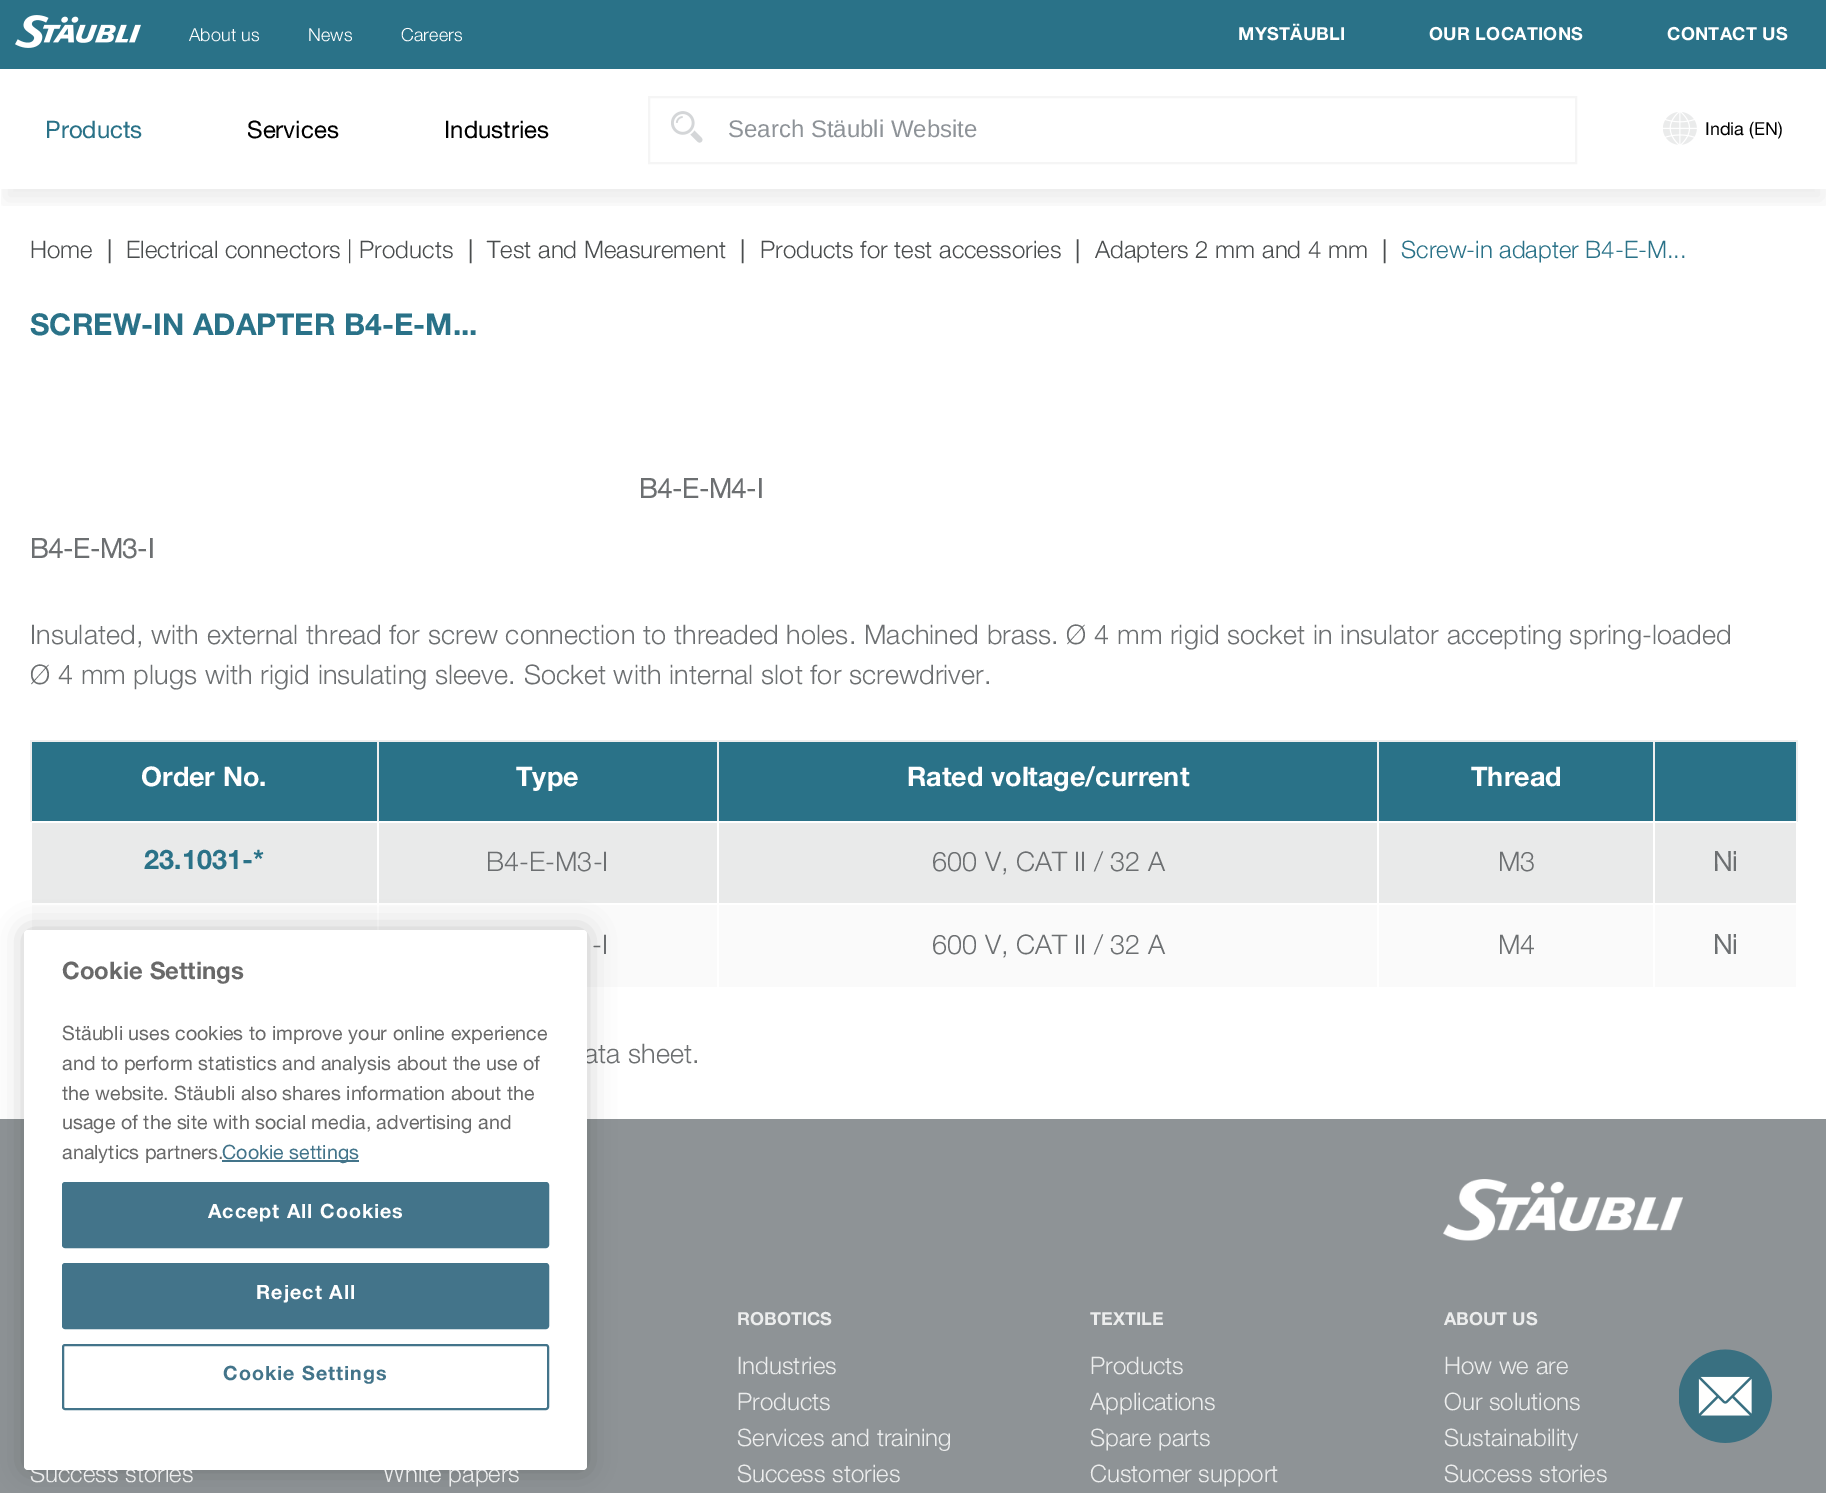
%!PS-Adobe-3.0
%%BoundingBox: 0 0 1826 1493
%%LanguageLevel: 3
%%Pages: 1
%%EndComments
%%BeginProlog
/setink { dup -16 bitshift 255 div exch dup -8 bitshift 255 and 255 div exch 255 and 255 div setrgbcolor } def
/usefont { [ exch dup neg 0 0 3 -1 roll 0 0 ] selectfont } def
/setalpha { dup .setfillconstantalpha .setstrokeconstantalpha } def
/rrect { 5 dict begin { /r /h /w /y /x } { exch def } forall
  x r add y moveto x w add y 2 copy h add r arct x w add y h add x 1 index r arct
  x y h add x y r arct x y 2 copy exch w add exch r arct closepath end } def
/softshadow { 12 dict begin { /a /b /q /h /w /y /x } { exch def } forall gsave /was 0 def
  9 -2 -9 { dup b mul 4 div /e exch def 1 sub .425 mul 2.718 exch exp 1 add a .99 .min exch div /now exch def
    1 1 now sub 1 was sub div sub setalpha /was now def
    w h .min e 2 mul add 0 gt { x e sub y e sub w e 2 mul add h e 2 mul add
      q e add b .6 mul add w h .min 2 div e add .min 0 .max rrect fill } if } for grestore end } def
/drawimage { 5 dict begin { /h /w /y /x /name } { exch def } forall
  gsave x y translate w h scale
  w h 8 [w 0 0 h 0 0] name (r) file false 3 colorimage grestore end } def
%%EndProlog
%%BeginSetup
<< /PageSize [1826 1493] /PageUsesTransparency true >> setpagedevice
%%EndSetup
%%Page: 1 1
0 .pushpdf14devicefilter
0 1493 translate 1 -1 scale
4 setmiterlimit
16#FFFFFF setink
0 0 1826 1493 rectfill
gsave
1 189 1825 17 rectclip
16#000000 setink
5 20 1818 180 0 11 0.07 softshadow
grestore
16#2A7288 setink
0 0 1826 69 rectfill
(img1.raw) 15 15 126 33 drawimage
/Helvetica-Light 18 usefont
16#FFFFFF setink
189 41 moveto 0.13 0 (About us) ashow
308 41 moveto 0.13 0 (News) ashow
401 41 moveto 0.13 0 (Careers) ashow
/Helvetica-Bold 18 usefont
1238 40 moveto 0.25 0 (MYSTÄUBLI) ashow
1429 40 moveto 0.25 0 (OUR LOCATIONS) ashow
1667 40 moveto 0.25 0 (CONTACT US) ashow
/Helvetica-Regular 24 usefont
16#2A7288 setink
45 138 moveto (Products) show
16#000000 setink
247 138 moveto (Services) show
444 138 moveto (Industries) show
16#F5F5F5 setink
2 setlinewidth
649 97 927 66 rectstroke
(img2.raw) 671 111 32 32 drawimage
/LiberationSans-Regular 24 usefont
16#8E9398 setink
728 137 moveto (Search Stäubli Website) show
(img3.raw) 1663 112 34 33 drawimage
/Helvetica-Regular 18 usefont
16#000000 setink
1705 135 moveto (India \(EN\)) show
16#8E9396 setink
0 1119 1826 374 rectfill
(img4.raw) 1679 1349 93 94 drawimage
/Helvetica-Light 24 usefont
16#4A4D4E setink
30 258 moveto (Home) show
/Helvetica-Regular 24 usefont
107 258 moveto (|) show
/Helvetica-Light 24 usefont
126 258 moveto (Electrical connectors | Products) show
/Helvetica-Regular 24 usefont
468 258 moveto (|) show
/Helvetica-Light 24 usefont
487 258 moveto (Test and Measurement) show
/Helvetica-Regular 24 usefont
740 258 moveto (|) show
/Helvetica-Light 24 usefont
760 258 moveto (Products for test accessories) show
/Helvetica-Regular 24 usefont
1075 258 moveto (|) show
/Helvetica-Light 24 usefont
1095 258 moveto (Adapters 2 mm and 4 mm) show
/Helvetica-Regular 24 usefont
1382 258 moveto (|) show
/Helvetica-Light 24 usefont
16#2A7288 setink
1401 258 moveto (Screw-in adapter B4-E-M...) show
/Helvetica-Bold 30 usefont
30 335 moveto (SCREW-IN ADAPTER B4-E-M...) show
/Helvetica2-Bold 27 usefont
16#6C6F71 setink
639 498 moveto 0.13 0 (B4-E-M4-I) ashow
30 558 moveto 0.13 0 (B4-E-M3-I) ashow
/Helvetica-Light 27 usefont
30 644 moveto 0.13 0 (Insulated, with external thread for screw connection to threaded holes. Machined brass. Ø 4 mm rigid socket in insulator accepting spring-loaded) ashow
30 684 moveto 0.13 0 (Ø 4 mm plugs with rigid insulating sleeve. Socket with internal slot for screwdriver.) ashow
[
    [32 742 1764 79 16#2A7288]
    [1653 740 144 2 16#EEEEEE]
    [32 823 1764 80 16#E9EAEA]
    [32 905 1764 82 16#FAFAFA]
    [1653 821 2 168 16#FFFFFF]
    [1653 740 2 82 16#EEEEEE]
    [1377 740 278 2 16#EEEEEE]
    [1377 821 2 168 16#FFFFFF]
    [1377 740 2 82 16#EEEEEE]
    [717 740 662 2 16#EEEEEE]
    [717 821 2 168 16#FFFFFF]
    [717 740 2 82 16#EEEEEE]
    [377 740 342 2 16#EEEEEE]
    [377 821 2 109 16#FFFFFF]
    [377 740 2 82 16#EEEEEE]
    [30 740 348 2 16#EEEEEE]
    [377 821 1 1 16#FFFFFF]
    [30 740 2 82 16#EEEEEE]
] { aload pop setink rectfill } forall
/Helvetica-Bold 27 usefont
16#FFFFFF setink
141 786 moveto (Order No.) show
717 821 2 1 rectfill
516 786 moveto (Type) show
1377 821 2 1 rectfill
907 786 moveto (Rated voltage/current) show
1653 821 2 1 rectfill
1471 786 moveto (Thread) show
16#EEEEEE setink
1796 740 2 82 rectfill
16#FFFFFF setink
1796 821 1 1 rectfill
16#2A7288 setink
144 869 moveto (23.1031-*) show
/Helvetica-Light 27 usefont
16#6C6F71 setink
[
    [(B4-E-M3-I) 486 871]
    [(600 V, CAT II / 32 A) 932 871]
    [(M3) 1498 871]
] { aload pop moveto show } forall
/Helvetica2-Bold 27 usefont
1713 871 moveto (Ni) show
/Helvetica-Light 27 usefont
[
    [(-I) 592 954]
    [(600 V, CAT II / 32 A) 932 954]
    [(M4) 1498 954]
] { aload pop moveto show } forall
/Helvetica2-Bold 27 usefont
1713 954 moveto (Ni) show
/Helvetica-Light 27 usefont
584 1063 moveto 0.13 0 (ata sheet.) ashow
16#000000 setink
24 930 563 540 4 13.5 0.2 softshadow
/Helvetica-Light 24 usefont
16#ECEDED setink
30 1482 moveto (Success stories) show
383 1482 moveto (White papers) show
16#FFFFFF setink
24 930 563 540 4 rrect fill
/Helvetica-Bold 24 usefont
16#696969 setink
62 979 moveto (Cookie Settings) show
/Helvetica-Regular 19.7 usefont
[
    [(Stäubli uses cookies to improve your online experience) 62 1040]
    [(and to perform statistics and analysis about the use of) 62 1070]
    [(the website. Stäubli also shares information about the) 62 1100]
    [(usage of the site with social media, advertising and) 62 1129]
    [(analytics partners.) 62 1159]
] { aload pop moveto show } forall
16#43748A setink
222 1160 137 2 rectfill
222 1159 moveto (Cookie settings) show
63 1183 485 64 2 rrect gsave fill grestore
stroke
/Helvetica-Bold 19.7 usefont
16#FFFFFF setink
208 1218 moveto 1 0 (Accept All Cookies) ashow
16#43748A setink
63 1264 485 64 2 rrect gsave fill grestore
stroke
16#FFFFFF setink
256 1299 moveto 1 0 (Reject All) ashow
16#43748A setink
63 1345 485 64 2 rrect stroke
223 1380 moveto 1 0 (Cookie Settings) ashow
(img5.raw) 1443 1179 240 62 drawimage
/Helvetica-Bold 18 usefont
16#ECEDED setink
737 1325 moveto (ROBOTICS) show
/Helvetica-Light 24 usefont
[
    [(Industries) 737 1374]
    [(Products) 737 1410]
    [(Services and training) 737 1446]
    [(Success stories) 737 1482]
] { aload pop moveto show } forall
/Helvetica-Bold 18 usefont
1090 1325 moveto (TEXTILE) show
/Helvetica-Light 24 usefont
[
    [(Products) 1090 1374]
    [(Applications) 1090 1410]
    [(Spare parts) 1090 1446]
    [(Customer support) 1090 1482]
] { aload pop moveto show } forall
/Helvetica-Bold 18 usefont
1444 1325 moveto (ABOUT US) show
/Helvetica-Light 24 usefont
[
    [(How we are) 1444 1374]
    [(Our solutions) 1444 1410]
    [(Sustainability) 1444 1446]
    [(Success stories) 1444 1482]
] { aload pop moveto show } forall
.poppdf14devicefilter showpage
%%EOF
